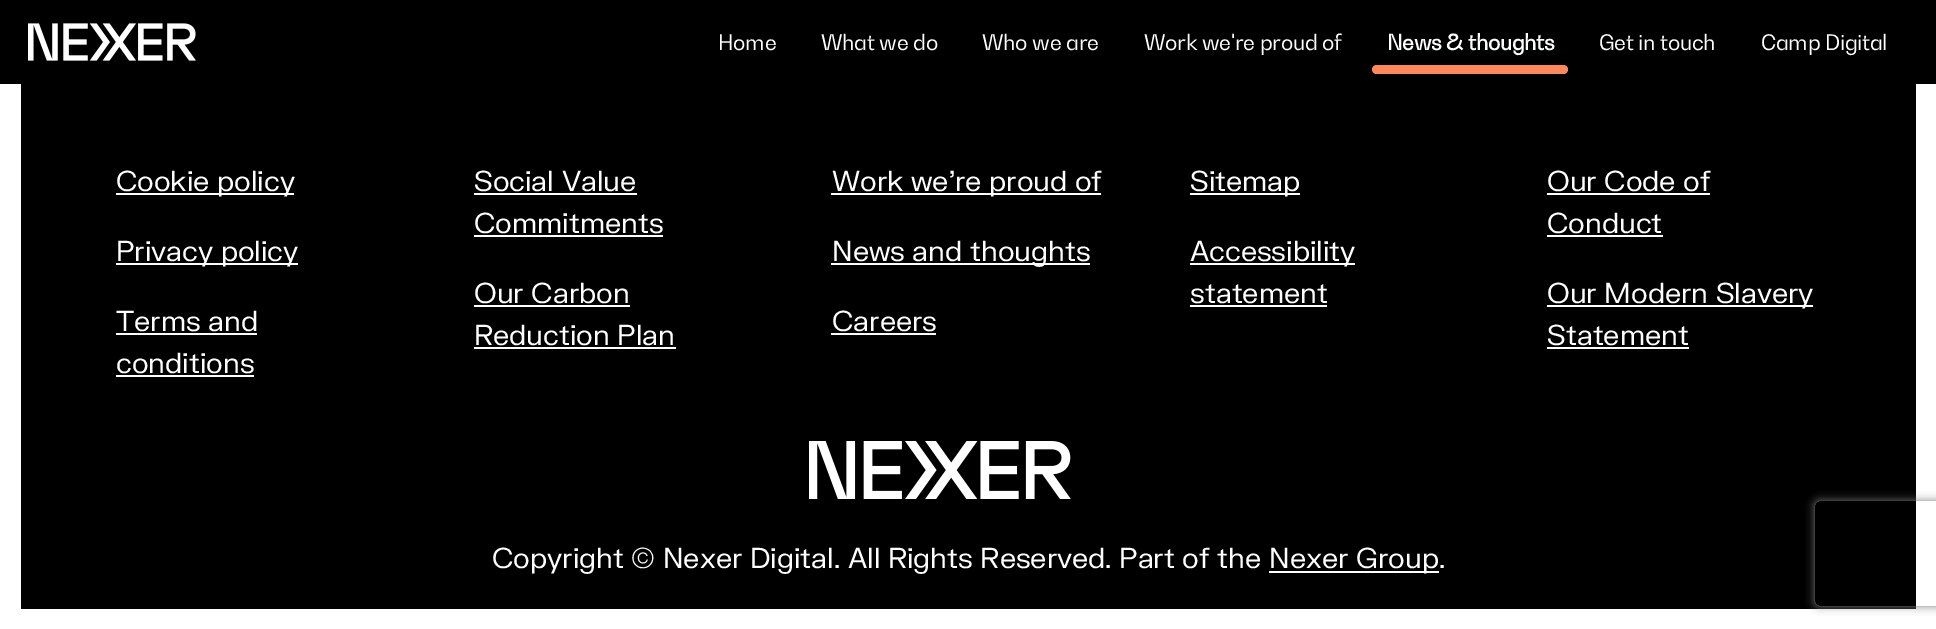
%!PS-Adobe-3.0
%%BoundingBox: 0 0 1936 629
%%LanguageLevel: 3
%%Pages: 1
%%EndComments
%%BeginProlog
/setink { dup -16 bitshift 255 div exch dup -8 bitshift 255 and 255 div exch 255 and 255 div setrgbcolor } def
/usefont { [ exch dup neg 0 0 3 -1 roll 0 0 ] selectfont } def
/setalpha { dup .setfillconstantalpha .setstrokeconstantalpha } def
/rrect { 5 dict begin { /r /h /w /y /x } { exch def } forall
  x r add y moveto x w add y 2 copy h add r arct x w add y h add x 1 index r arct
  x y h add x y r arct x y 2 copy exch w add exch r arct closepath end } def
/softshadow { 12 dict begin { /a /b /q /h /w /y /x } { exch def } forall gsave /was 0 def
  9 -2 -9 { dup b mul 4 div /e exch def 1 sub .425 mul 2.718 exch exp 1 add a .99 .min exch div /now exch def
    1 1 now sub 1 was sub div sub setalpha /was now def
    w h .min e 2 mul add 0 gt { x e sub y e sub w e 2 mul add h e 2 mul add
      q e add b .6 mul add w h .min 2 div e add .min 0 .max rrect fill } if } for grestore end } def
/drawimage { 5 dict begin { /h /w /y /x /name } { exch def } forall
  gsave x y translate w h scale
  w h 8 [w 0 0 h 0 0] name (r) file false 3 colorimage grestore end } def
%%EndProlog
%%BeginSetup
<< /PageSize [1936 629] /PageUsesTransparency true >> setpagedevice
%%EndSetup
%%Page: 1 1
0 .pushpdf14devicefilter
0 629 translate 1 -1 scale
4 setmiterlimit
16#FFFFFF setink
0 0 1936 629 rectfill
16#000000 setink
0 0 1936 84 rectfill
(img1.raw) 28 23 168 38 drawimage
/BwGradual-Regular 21.25 usefont
16#FFFFFF setink
718 50 moveto -0.25 0 (Home) ashow
821 50 moveto -0.25 0 (What we do) ashow
982 50 moveto -0.25 0 (Who we are) ashow
1144 50 moveto -0.25 0 (Work we're proud of) ashow
/BwGradual-Bold 21.25 usefont
1387 50 moveto -0.25 0 (News & thoughts) ashow
16#FF885B setink
1372 65 196 9 4.5 rrect fill
/BwGradual-Regular 21.25 usefont
16#FFFFFF setink
1599 50 moveto -0.25 0 (Get in touch) ashow
1761 50 moveto -0.25 0 (Camp Digital) ashow
16#000000 setink
21 84 1895 525 rectfill
16#FFFFFF setink
116 193 178 2 rectfill
/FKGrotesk-Regular 28 usefont
116 191 moveto (Cookie policy) show
116 263 182 2 rectfill
116 261 moveto (Privacy policy) show
116 331 moveto (Terms and) show
116 333 141 2 rectfill
116 373 moveto (conditions) show
116 375 138 2 rectfill
474 191 moveto (Social Value) show
474 193 163 2 rectfill
474 233 moveto (Commitments) show
474 235 189 2 rectfill
474 303 moveto (Our Carbon) show
474 305 156 2 rectfill
474 345 moveto (Reduction Plan) show
474 347 202 2 rectfill
831 193 270 2 rectfill
832 191 moveto (Work we're proud of) show
831 263 259 2 rectfill
832 261 moveto (News and thoughts) show
832 331 moveto (Careers) show
831 333 105 2 rectfill
1190 193 110 2 rectfill
1190 191 moveto (Sitemap) show
1190 263 165 2 rectfill
1190 261 moveto (Accessibility) show
1190 303 moveto (statement) show
1190 305 137 2 rectfill
1547 191 moveto (Our Code of) show
1547 193 163 2 rectfill
1547 233 moveto (Conduct) show
1547 235 116 2 rectfill
1547 305 266 2 rectfill
1547 303 moveto (Our Modern Slavery) show
1547 345 moveto (Statement) show
1547 347 142 2 rectfill
(img2.raw) 809 441 262 58 drawimage
492 568 moveto (Copyright © Nexer Digital. All Rights Reserved. Part of the) show
1269 571 170 2 rectfill
1269 568 moveto (Nexer Group.) show
gsave
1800 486 moveto 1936 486 lineto 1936 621 lineto 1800 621 lineto closepath 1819 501 moveto 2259 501 lineto 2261 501 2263 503 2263 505 curveto 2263 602 lineto 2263 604 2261 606 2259 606 curveto 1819 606 lineto 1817 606 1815 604 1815 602 curveto 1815 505 lineto 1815 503 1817 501 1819 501 curveto closepath eoclip newpath
16#808080 setink
1815 501 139 105 4 4.5 1 softshadow
grestore
.poppdf14devicefilter showpage
%%EOF
